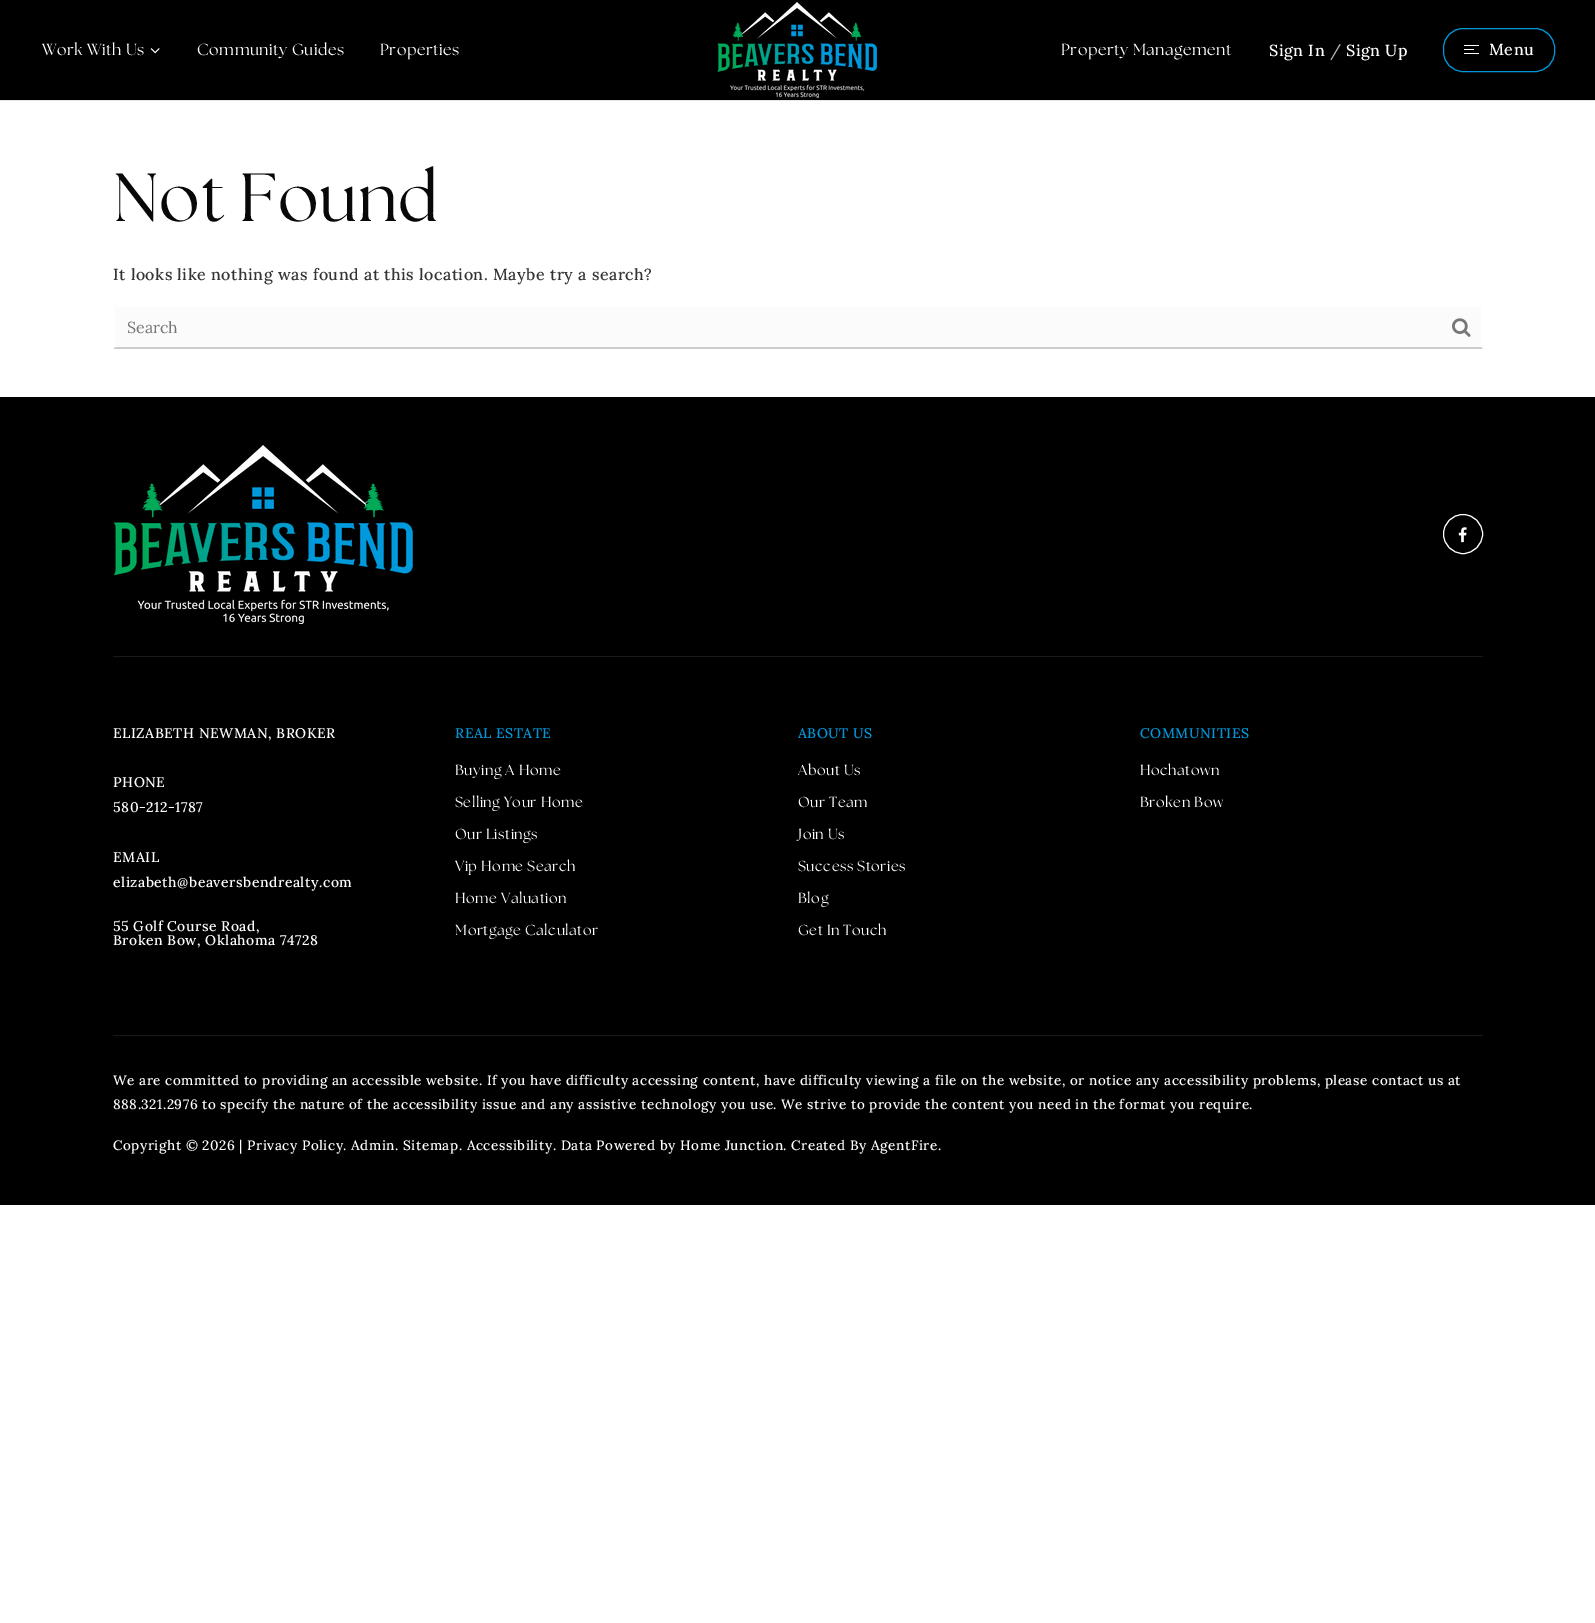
%!PS-Adobe-3.0
%%BoundingBox: 0 0 1595 1623
%%LanguageLevel: 3
%%Pages: 1
%%EndComments
%%BeginProlog
/setink { dup -16 bitshift 255 div exch dup -8 bitshift 255 and 255 div exch 255 and 255 div setrgbcolor } def
/usefont { [ exch dup neg 0 0 3 -1 roll 0 0 ] selectfont } def
/disc { newpath 0 360 arc closepath } def
/rrect { 5 dict begin { /r /h /w /y /x } { exch def } forall
  x r add y moveto x w add y 2 copy h add r arct x w add y h add x 1 index r arct
  x y h add x y r arct x y 2 copy exch w add exch r arct closepath end } def
/drawimage { 5 dict begin { /h /w /y /x /name } { exch def } forall
  gsave x y translate w h scale
  w h 8 [w 0 0 h 0 0] name (r) file false 3 colorimage grestore end } def
%%EndProlog
%%BeginSetup
<< /PageSize [1595 1623] >> setpagedevice
%%EndSetup
%%Page: 1 1
0 1623 translate 1 -1 scale
4 setmiterlimit
16#FFFFFF setink
0 0 1595 1623 rectfill
16#E6E6E6 setink
0 100 1595 1 rectfill
16#000000 setink
0 0 1595 100 rectfill
/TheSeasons-Regular 16 usefont
16#FFFFFF setink
42 55 moveto 0.5 0 (Work With Us) ashow
(img1.raw) 150 48 10 6 drawimage
197 55 moveto 0.5 0 (Community Guides) ashow
380 55 moveto 0.5 0 (Properties) ashow
(img2.raw) 717 2 160 96 drawimage
1061 55 moveto 0.5 0 (Property Management) ashow
/Lora-Medium 16 usefont
1269 56 moveto 0.5 0 (Sign In) ashow
16#B3B3B3 setink
1330 56 moveto 0.5 0 (/) ashow
16#FFFFFF setink
1346 56 moveto 0.5 0 (Sign Up) ashow
16#0098DA setink
1443.5 28.5 111 43 19.5 rrect stroke
[
    [1464 45 15 1 16#FFFFFF]
    [1464 49 10 1 16#FFFFFF]
    [1464 53 15 1 16#FFFFFF]
] { aload pop setink rectfill } forall
1489 55 moveto 0.5 0 (Menu) ashow
/TheSeasons-Regular 68 usefont
16#080808 setink
113 221 moveto 0.5 0 (Not Found) ashow
/Lora-Medium 16 usefont
16#333333 setink
113 280 moveto 0.5 0 (It looks like nothing was found at this location. Maybe try a search?) ashow
16#FBFBFB setink
113 307 1370 42 rectfill
16#FFFFFF setink
1483 305 moveto 1483 349 lineto 1481 347 lineto 1481 307 lineto closepath fill
16#CCCCCC setink
1483 349 moveto 113 349 lineto 115 347 lineto 1481 347 lineto closepath fill
16#FFFFFF setink
113 349 moveto 113 305 lineto 115 307 lineto 115 347 lineto closepath fill
/Lora-Regular 16 usefont
16#757575 setink
127 333 moveto (Search) show
(img3.raw) 1452 318 19 19 drawimage
16#000000 setink
0 397 1595 808 rectfill
16#1C1815 setink
113 656 1370 1 rectfill
(img4.raw) 113 445 300 179 drawimage
16#FFFFFF setink
1463 534 19.5 disc stroke
(img5.raw) 1458 527 9 16 drawimage
/Lora-Medium 14 usefont
113 738 moveto 0.5 0 (ELIZABETH NEWMAN, BROKER) ashow
113 787 moveto 0.5 0 (PHONE) ashow
113 812 moveto 0.5 0 (580-212-1787) ashow
113 862 moveto 0.5 0 (EMAIL) ashow
113 887 moveto 0.5 0 (elizabeth@beaversbendrealty.com) ashow
113 931 moveto 0.5 0 (55 Golf Course Road,) ashow
113 945 moveto 0.5 0 (Broken Bow, Oklahoma 74728) ashow
16#0098DA setink
455 738 moveto 0.5 0 (REAL ESTATE) ashow
/TheSeasons-Regular 14.5 usefont
16#FFFFFF setink
455 775 moveto 0.5 0 (Buying A Home) ashow
455 807 moveto 0.5 0 (Selling Your Home) ashow
455 839 moveto 0.5 0 (Our Listings) ashow
455 871 moveto 0.5 0 (Vip Home Search) ashow
455 903 moveto 0.5 0 (Home Valuation) ashow
455 935 moveto 0.5 0 (Mortgage Calculator) ashow
/Lora-Medium 14 usefont
16#0098DA setink
798 738 moveto 0.5 0 (ABOUT US) ashow
/TheSeasons-Regular 14.5 usefont
16#FFFFFF setink
798 775 moveto 0.5 0 (About Us) ashow
798 807 moveto 0.5 0 (Our Team) ashow
798 839 moveto 0.5 0 (Join Us) ashow
798 871 moveto 0.5 0 (Success Stories) ashow
798 903 moveto 0.5 0 (Blog) ashow
798 935 moveto 0.5 0 (Get In Touch) ashow
/Lora-Medium 14 usefont
16#0098DA setink
1140 738 moveto 0.5 0 (COMMUNITIES) ashow
/TheSeasons-Regular 14.5 usefont
16#FFFFFF setink
1140 775 moveto 0.5 0 (Hochatown) ashow
1140 807 moveto 0.5 0 (Broken Bow) ashow
16#1C1815 setink
113 1035 1370 1 rectfill
/Lora-Medium 13.6 usefont
16#FFFFFF setink
113 1085 moveto 0.5 0 (We are committed to providing an accessible website. If you have difficulty accessing content, have difficulty viewing a file on the website, or notice any accessibility problems, please contact us at) ashow
113 1109 moveto 0.5 0 (888.321.2976 to specify the nature of the accessibility issue and any assistive technology you use. We strive to provide the content you need in the format you require.) ashow
113 1150 moveto 0.5 0 (Copyright © 2026 | Privacy Policy. Admin. Sitemap. Accessibility. Data Powered by Home Junction. Created By AgentFire.) ashow
showpage
%%EOF
